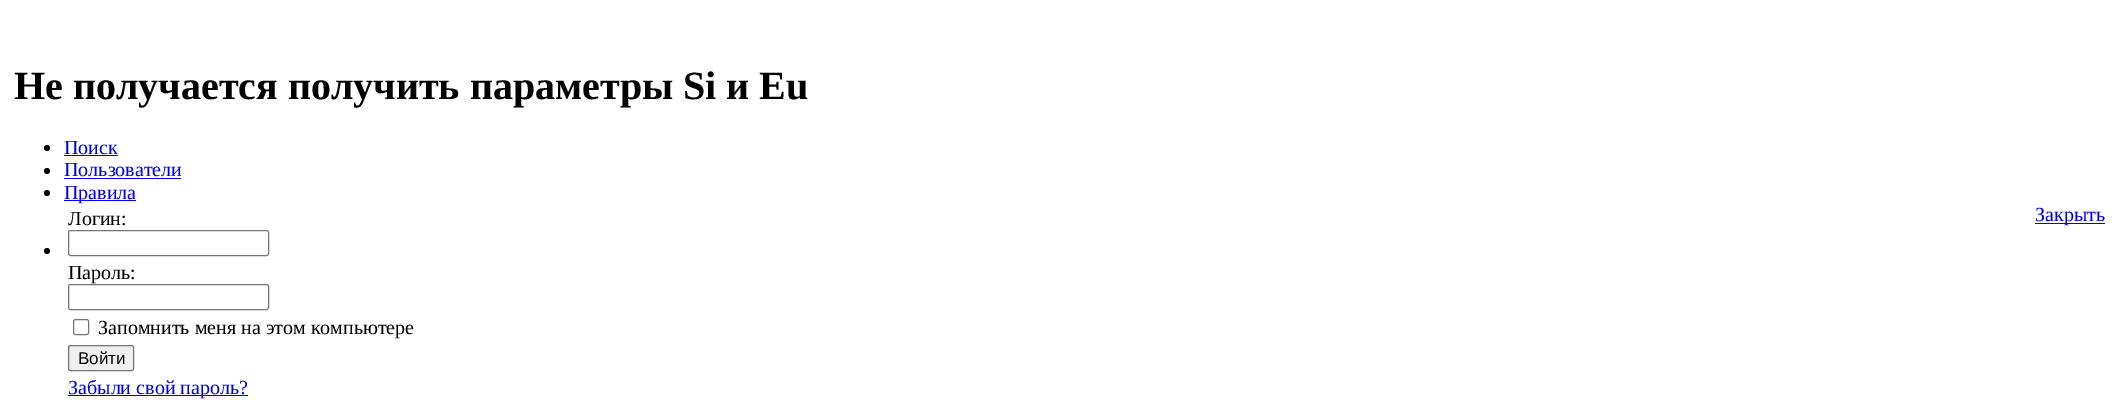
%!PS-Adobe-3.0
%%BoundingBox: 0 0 2118 408
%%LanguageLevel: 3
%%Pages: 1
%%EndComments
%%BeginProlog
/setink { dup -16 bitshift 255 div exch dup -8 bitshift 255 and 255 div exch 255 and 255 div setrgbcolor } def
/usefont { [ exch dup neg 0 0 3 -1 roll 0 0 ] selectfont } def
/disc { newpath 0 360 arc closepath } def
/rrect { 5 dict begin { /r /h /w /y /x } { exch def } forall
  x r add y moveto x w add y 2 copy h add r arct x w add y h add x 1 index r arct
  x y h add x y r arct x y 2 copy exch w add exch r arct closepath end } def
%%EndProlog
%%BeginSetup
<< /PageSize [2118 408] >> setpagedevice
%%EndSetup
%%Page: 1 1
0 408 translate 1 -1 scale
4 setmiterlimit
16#FFFFFF setink
0 0 2118 408 rectfill
/LiberationSerif-Bold 40 usefont
16#000000 setink
14 99 moveto (Не получается получить параметры Si и Eu) show
47 148 3 disc fill
/LiberationSerif-Regular 20 usefont
16#0000EE setink
64 154 moveto (Поиск) show
64 155 54 1 rectfill
16#000000 setink
47 171 3 disc fill
16#0000EE setink
64 176 moveto (Пользователи) show
64 178 117 1 rectfill
16#000000 setink
47 193 3 disc fill
16#0000EE setink
64 200 72 1 rectfill
64 199 moveto (Правила) show
16#000000 setink
47 251 3 disc fill
68 225 moveto (Логин:) show
16#767676 setink
68.5 230.5 200 25 2 rrect stroke
16#000000 setink
68 279 moveto (Пароль:) show
16#767676 setink
68.5 284.5 200 25 2 rrect stroke
73.5 319.5 15 15 2 rrect stroke
16#000000 setink
98 334 moveto (Запомнить меня на этом компьютере) show
16#EFEFEF setink
68.5 345.5 65 25 2 rrect gsave fill grestore
16#767676 setink
stroke
/LiberationSans-Regular 17 usefont
16#000000 setink
78 364 moveto (Войти) show
16#0000EE setink
68 395 180 1 rectfill
/LiberationSerif-Regular 20 usefont
68 394 moveto (Забыли свой пароль?) show
2035 223 70 1 rectfill
2035 221 moveto (Закрыть) show
showpage
%%EOF
